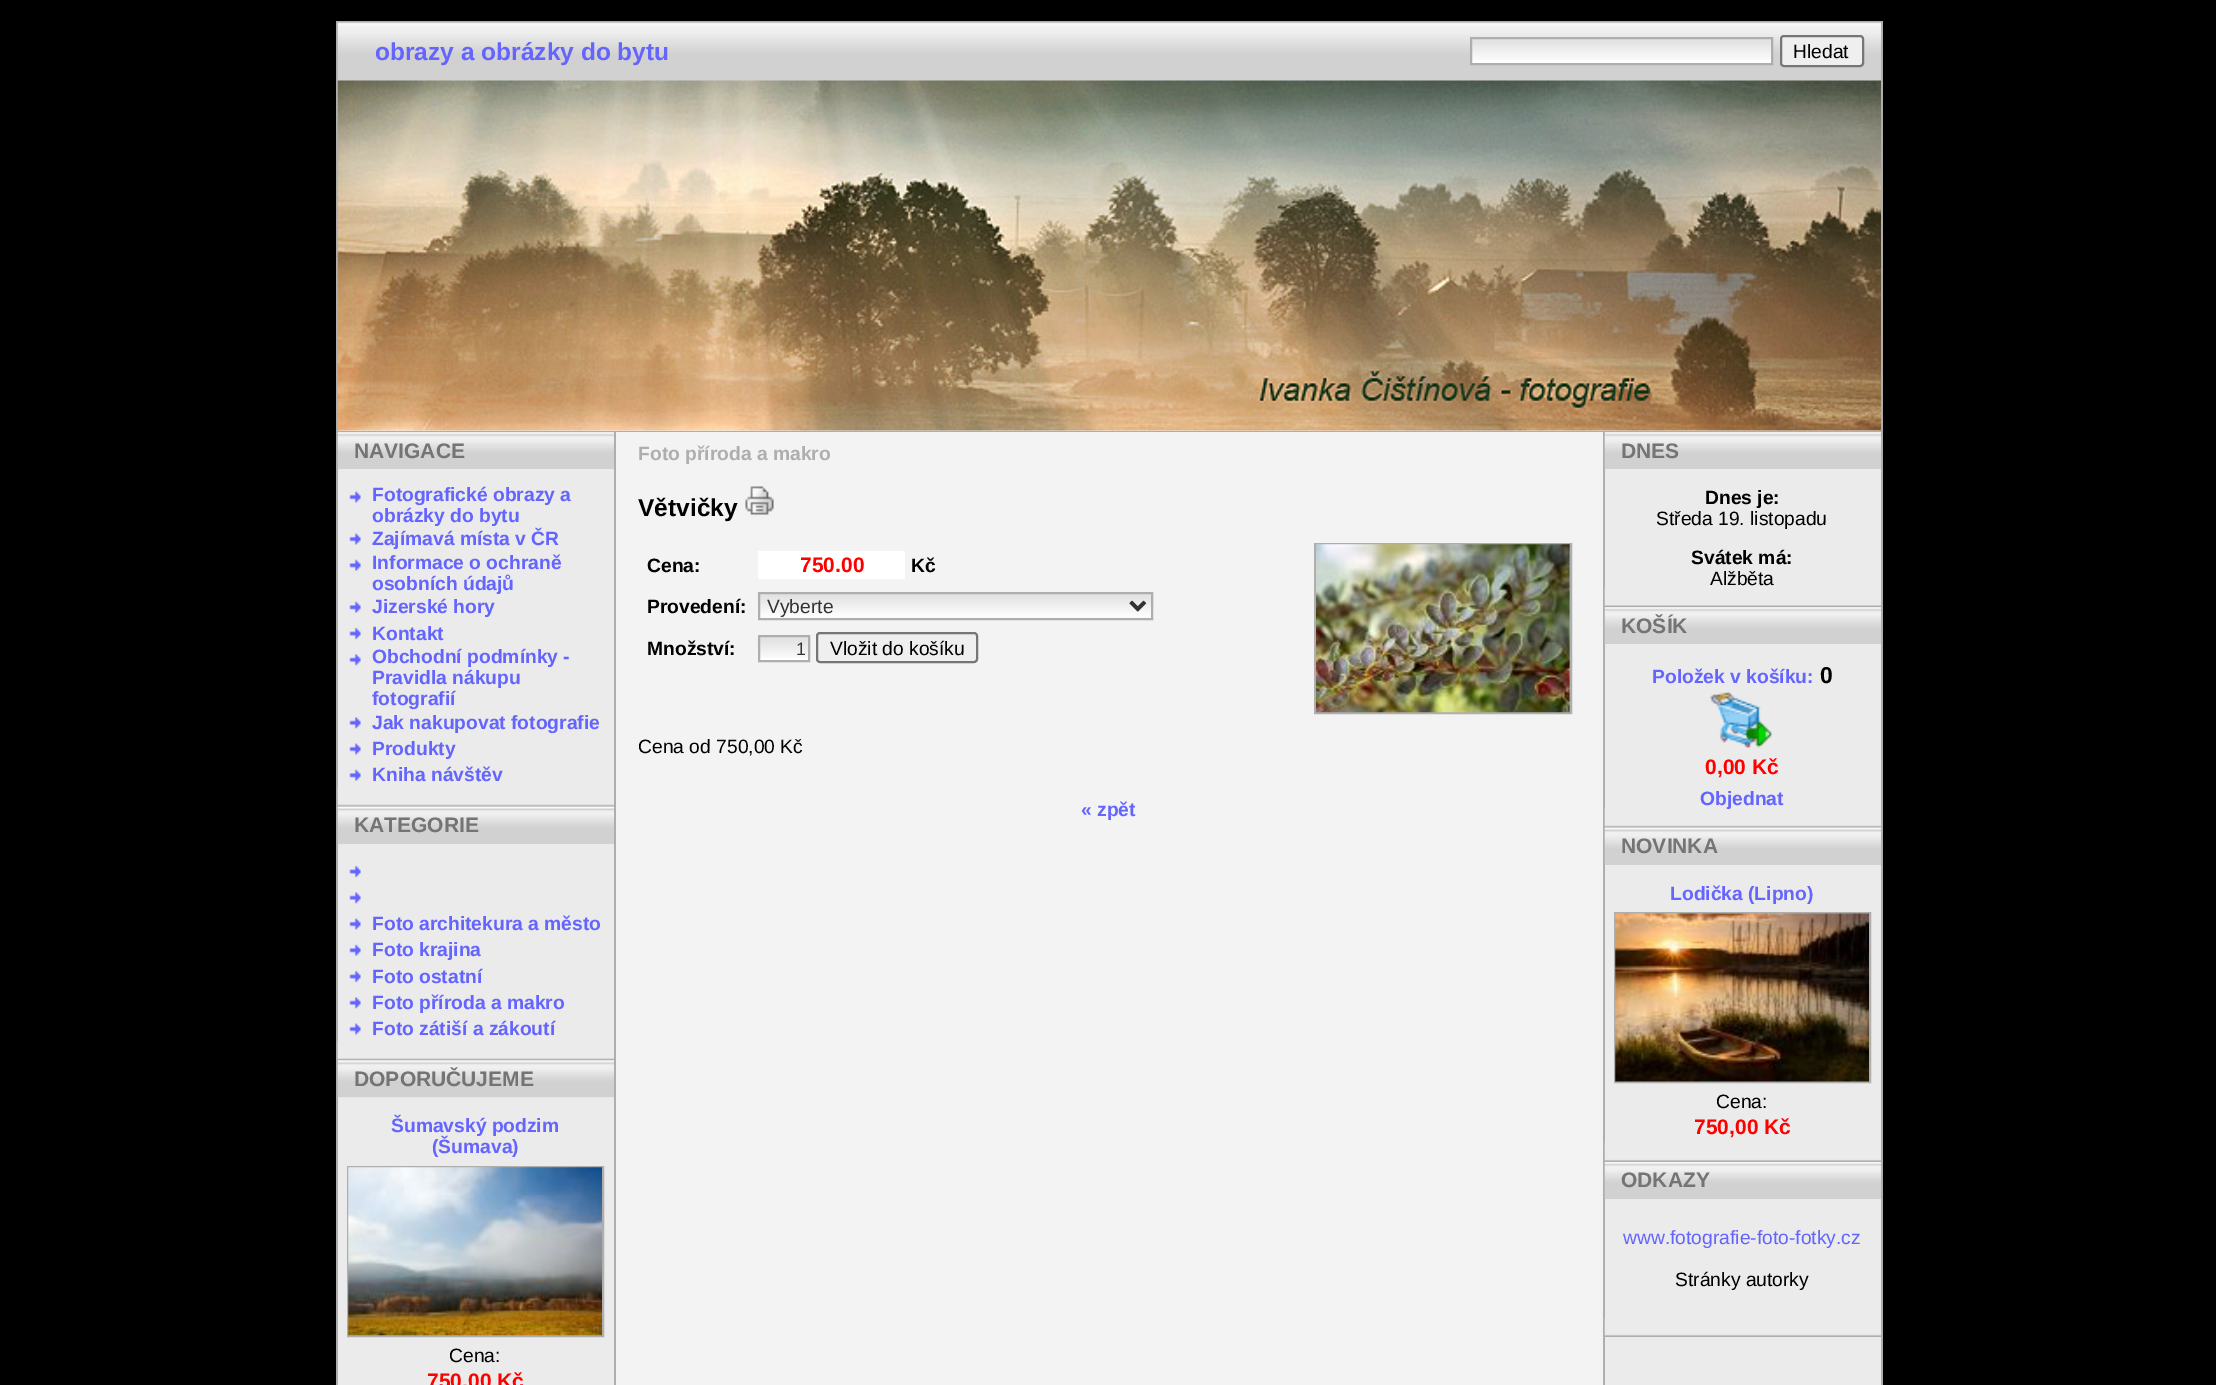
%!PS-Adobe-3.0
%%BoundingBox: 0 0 2216 1385
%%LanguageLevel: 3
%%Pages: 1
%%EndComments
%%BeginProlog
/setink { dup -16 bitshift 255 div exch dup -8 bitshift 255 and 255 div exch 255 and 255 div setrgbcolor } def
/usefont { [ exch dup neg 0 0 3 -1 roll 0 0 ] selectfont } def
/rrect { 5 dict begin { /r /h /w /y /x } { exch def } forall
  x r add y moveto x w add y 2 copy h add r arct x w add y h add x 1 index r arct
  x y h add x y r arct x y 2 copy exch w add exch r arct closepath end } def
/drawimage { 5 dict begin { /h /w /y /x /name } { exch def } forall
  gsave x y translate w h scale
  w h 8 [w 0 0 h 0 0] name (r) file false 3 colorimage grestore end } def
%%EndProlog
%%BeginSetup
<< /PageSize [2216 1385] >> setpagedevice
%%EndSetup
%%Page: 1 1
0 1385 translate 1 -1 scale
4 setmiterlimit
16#000000 setink
0 0 2216 1385 rectfill
16#AEAEAE setink
336 21 2 1364 rectfill
(img1.raw) 337 21 1042 60 drawimage
/LiberationSans-Bold 24.5 usefont
16#6464FF setink
375 60 moveto (obrazy a obrázky do bytu) show
(img2.raw) 1379 21 502 60 drawimage
16#FFFFFF setink
1472 60 299 3 rectfill
(img3.raw) 1472 39 299 21 drawimage
16#AEAEAE setink
2 setlinewidth
1471 38 301 26 rectstroke
16#EFEFEF setink
1781 36 82 30 3 rrect gsave fill grestore
16#767676 setink
stroke
/LiberationSans-Regular 19.25 usefont
16#000000 setink
1793 58 moveto (Hledat) show
16#EBEBEB setink
338 430 1543 1 rectfill
(img4.raw) 337 80 1544 351 drawimage
16#AEAEAE setink
338 431 1543 1 rectfill
16#EBEBEB setink
338 432 276 953 rectfill
(img5.raw) 337 432 277 37 drawimage
/LiberationSans-Bold 21 usefont
16#747474 setink
354 458 moveto (NAVIGACE) show
(img6.raw) 349 491 12 12 drawimage
/LiberationSans-Bold 19.25 usefont
16#6464FF setink
372 501 moveto (Fotografické obrazy a) show
372 522 moveto (obrázky do bytu) show
(img6.raw) 349 533 12 12 drawimage
372 545 moveto (Zajímavá místa v ČR) show
(img7.raw) 349 559 12 12 drawimage
372 569 moveto (Informace o ochraně) show
372 590 moveto (osobních údajů) show
(img7.raw) 349 601 12 12 drawimage
372 613 moveto (Jizerské hory) show
(img8.raw) 349 627 12 13 drawimage
372 640 moveto (Kontakt) show
(img9.raw) 349 654 12 12 drawimage
[
    [(Obchodní podmínky -) 372 663]
    [(Pravidla nákupu) 372 684]
    [(fotografií) 372 705]
] { aload pop moveto show } forall
(img9.raw) 349 717 12 12 drawimage
372 729 moveto (Jak nakupovat fotografie) show
(img6.raw) 349 743 12 12 drawimage
372 755 moveto (Produkty) show
(img7.raw) 349 769 12 12 drawimage
372 781 moveto (Kniha návštěv) show
(img10.raw) 337 787 277 20 drawimage
16#D1D1D1 setink
338 843 276 1 rectfill
(img11.raw) 337 806 277 38 drawimage
/LiberationSans-Bold 21 usefont
16#747474 setink
354 832 moveto (KATEGORIE) show
(img8.raw) 349 865 12 13 drawimage
(img9.raw) 349 892 12 12 drawimage
(img6.raw) 349 918 12 12 drawimage
/LiberationSans-Bold 19.25 usefont
16#6464FF setink
372 930 moveto (Foto architekura a město) show
(img7.raw) 349 944 12 12 drawimage
372 956 moveto (Foto krajina) show
(img8.raw) 349 970 12 13 drawimage
372 983 moveto (Foto ostatní) show
(img9.raw) 349 997 12 12 drawimage
372 1009 moveto (Foto příroda a makro) show
(img6.raw) 349 1023 12 12 drawimage
372 1035 moveto (Foto zátiší a zákoutí) show
(img12.raw) 337 1041 277 20 drawimage
(img13.raw) 337 1060 277 38 drawimage
/LiberationSans-Bold 21 usefont
16#747474 setink
354 1086 moveto (DOPORUČUJEME) show
/LiberationSans-Bold 19.25 usefont
16#6464FF setink
391 1132 moveto (Šumavský podzim) show
432 1153 moveto (\(Šumava\)) show
16#AEAEAE setink
348 1167 255 169 rectstroke
(img14.raw) 348 1167 254 169 drawimage
/LiberationSans-Regular 19.25 usefont
16#000000 setink
449 1362 moveto (Cena:) show
/LiberationSans-Bold 21 usefont
16#FF0000 setink
427 1388 moveto (750,00 Kč) show
16#AEAEAE setink
614 432 2 953 rectfill
16#F3F3F3 setink
616 432 987 953 rectfill
/LiberationSans-Bold 19.25 usefont
16#AEAEAE setink
638 460 moveto (Foto příroda a makro) show
/LiberationSans-Bold 24.5 usefont
16#000000 setink
638 516 moveto (Větvičky) show
(img15.raw) 745 486 29 29 drawimage
/LiberationSans-Bold 19.25 usefont
647 572 moveto (Cena:) show
16#FFFFFF setink
758 551 147 28 rectfill
/LiberationSans-Bold 21 usefont
16#FF0000 setink
800 572 moveto (750.00) show
/LiberationSans-Bold 19.25 usefont
16#000000 setink
911 572 moveto (Kč) show
647 613 moveto (Provedení:) show
(img16.raw) 757 593 397 25 drawimage
16#AEAEAE setink
759 593 393 26 rectstroke
16#333333 setink
3.5 setlinewidth
1131 602 moveto 1138 609 lineto 1145 602 lineto stroke
/LiberationSans-Regular 19.25 usefont
767 613 moveto (Vyberte) show
/LiberationSans-Bold 19.25 usefont
16#000000 setink
647 655 moveto (Množství:) show
16#FFFFFF setink
760 658 48 2 rectfill
(img17.raw) 757 637 54 21 drawimage
16#AEAEAE setink
2 setlinewidth
759 636 50 25 rectstroke
/LiberationSans-Regular 18 usefont
16#333333 setink
796 655 moveto (1) show
16#EFEFEF setink
817 633 160 29 3 rrect gsave fill grestore
16#767676 setink
stroke
/LiberationSans-Regular 19.25 usefont
16#000000 setink
830 655 moveto (Vložit do košíku) show
16#AEAEAE setink
1315 544 256 169 rectstroke
(img18.raw) 1316 544 254 169 drawimage
16#000000 setink
638 753 moveto (Cena od 750,00 Kč) show
/LiberationSans-Bold 19.25 usefont
16#6464FF setink
1081 816 moveto (« zpět) show
16#AEAEAE setink
1603 432 2 953 rectfill
16#EBEBEB setink
1605 432 276 953 rectfill
(img5.raw) 1604 432 277 37 drawimage
/LiberationSans-Bold 21 usefont
16#747474 setink
1621 458 moveto (DNES) show
/LiberationSans-Bold 19.25 usefont
16#000000 setink
1705 504 moveto (Dnes je:) show
/LiberationSans-Regular 19.25 usefont
1656 525 moveto (Středa 19. listopadu) show
/LiberationSans-Bold 19.25 usefont
1691 564 moveto (Svátek má:) show
/LiberationSans-Regular 19.25 usefont
1710 585 moveto (Alžběta) show
(img19.raw) 1604 588 277 20 drawimage
(img5.raw) 1604 607 277 37 drawimage
/LiberationSans-Bold 21 usefont
16#747474 setink
1621 633 moveto (KOŠÍK) show
/LiberationSans-Bold 19.25 usefont
16#6464FF setink
1652 683 moveto (Položek v košíku:) show
/LiberationSans-Bold 23 usefont
16#000000 setink
1820 683 moveto (0) show
(img20.raw) 1709 691 64 57 drawimage
/LiberationSans-Bold 21 usefont
16#FF0000 setink
1705 774 moveto (0,00 Kč) show
(img10.raw) 1604 808 277 20 drawimage
/LiberationSans-Bold 19.25 usefont
16#6464FF setink
1700 805 moveto (Objednat) show
16#D1D1D1 setink
1605 864 276 1 rectfill
(img11.raw) 1604 827 277 38 drawimage
/LiberationSans-Bold 21 usefont
16#747474 setink
1621 853 moveto (NOVINKA) show
/LiberationSans-Bold 19.25 usefont
16#6464FF setink
1670 900 moveto (Lodička \(Lipno\)) show
16#AEAEAE setink
1615 913 255 169 rectstroke
(img21.raw) 1615 913 254 169 drawimage
/LiberationSans-Regular 19.25 usefont
16#000000 setink
1716 1108 moveto (Cena:) show
/LiberationSans-Bold 21 usefont
16#FF0000 setink
1694 1134 moveto (750,00 Kč) show
(img22.raw) 1604 1142 277 20 drawimage
(img23.raw) 1604 1162 277 37 drawimage
16#747474 setink
1621 1187 moveto (ODKAZY) show
/LiberationSans-Regular 19.25 usefont
16#6464FF setink
1623 1244 moveto (www.fotografie-foto-fotky.cz) show
16#000000 setink
1675 1286 moveto (Stránky autorky) show
(img22.raw) 1604 1317 277 20 drawimage
16#AEAEAE setink
1881 21 2 1364 rectfill
showpage
%%EOF
